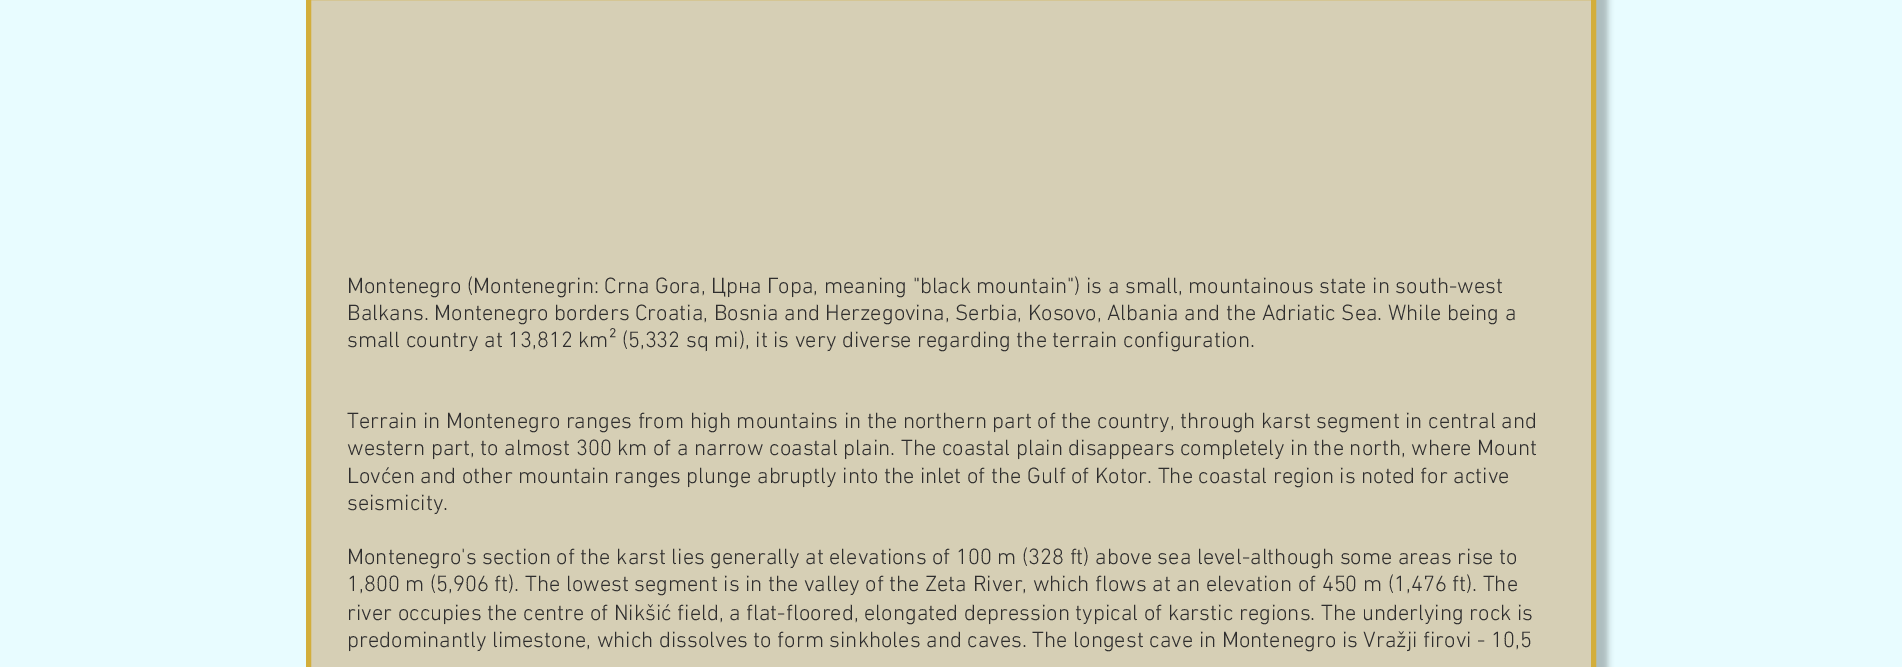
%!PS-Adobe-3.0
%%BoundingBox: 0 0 1902 667
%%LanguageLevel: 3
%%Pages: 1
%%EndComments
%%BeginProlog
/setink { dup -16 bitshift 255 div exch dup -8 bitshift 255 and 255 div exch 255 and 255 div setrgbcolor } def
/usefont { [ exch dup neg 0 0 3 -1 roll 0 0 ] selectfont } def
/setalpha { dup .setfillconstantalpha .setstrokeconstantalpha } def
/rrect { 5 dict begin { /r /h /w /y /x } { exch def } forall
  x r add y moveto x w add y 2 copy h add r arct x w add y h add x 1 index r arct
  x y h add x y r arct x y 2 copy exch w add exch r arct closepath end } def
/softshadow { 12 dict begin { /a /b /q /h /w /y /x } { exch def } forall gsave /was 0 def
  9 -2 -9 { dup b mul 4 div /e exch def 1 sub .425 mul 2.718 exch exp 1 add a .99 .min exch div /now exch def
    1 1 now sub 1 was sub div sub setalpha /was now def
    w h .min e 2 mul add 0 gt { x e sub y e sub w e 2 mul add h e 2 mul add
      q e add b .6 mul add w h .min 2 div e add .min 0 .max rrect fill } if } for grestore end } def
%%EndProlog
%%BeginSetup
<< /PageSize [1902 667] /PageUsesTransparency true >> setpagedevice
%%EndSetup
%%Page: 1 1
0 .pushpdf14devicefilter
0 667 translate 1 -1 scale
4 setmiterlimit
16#E8FCFF setink
0 0 1902 667 rectfill
16#000000 setink
318 -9 1290 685 0 3 0.25 softshadow
16#D6CFB5 setink
308.5 -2.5 moveto 1593.5 -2.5 lineto 1593.5 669.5 lineto 308.5 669.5 lineto closepath gsave fill grestore
16#D3AE3B setink
5 setlinewidth
stroke
/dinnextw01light-Light 22.5 usefont
16#2F2E2E setink
[
    [(Montenegro \(Montenegrin: Crna Gora, Црна Гора, meaning "black mountain"\) is a small, mountainous state in south-west) 347 293]
    [(Balkans. Montenegro borders Croatia, Bosnia and Herzegovina, Serbia, Kosovo, Albania and the Adriatic Sea. While being a) 347 320]
    [(small country at 13,812 km² \(5,332 sq mi\), it is very diverse regarding the terrain configuration.) 347 347]
    [(Terrain in Montenegro ranges from high mountains in the northern part of the country, through karst segment in central and) 347 428]
    [(western part, to almost 300 km of a narrow coastal plain. The coastal plain disappears completely in the north, where Mount) 347 455]
    [(Lovćen and other mountain ranges plunge abruptly into the inlet of the Gulf of Kotor. The coastal region is noted for active) 347 483]
    [(seismicity.) 347 510]
    [(Montenegro's section of the karst lies generally at elevations of 100 m \(328 ft\) above sea level-although some areas rise to) 347 564]
    [(1,800 m \(5,906 ft\). The lowest segment is in the valley of the Zeta River, which flows at an elevation of 450 m \(1,476 ft\). The) 347 591]
    [(river occupies the centre of Nikšić field, a flat-floored, elongated depression typical of karstic regions. The underlying rock is) 347 620]
    [(predominantly limestone, which dissolves to form sinkholes and caves. The longest cave in Montenegro is Vražji firovi - 10,5) 347 647]
] { aload pop moveto show } forall
.poppdf14devicefilter showpage
%%EOF
